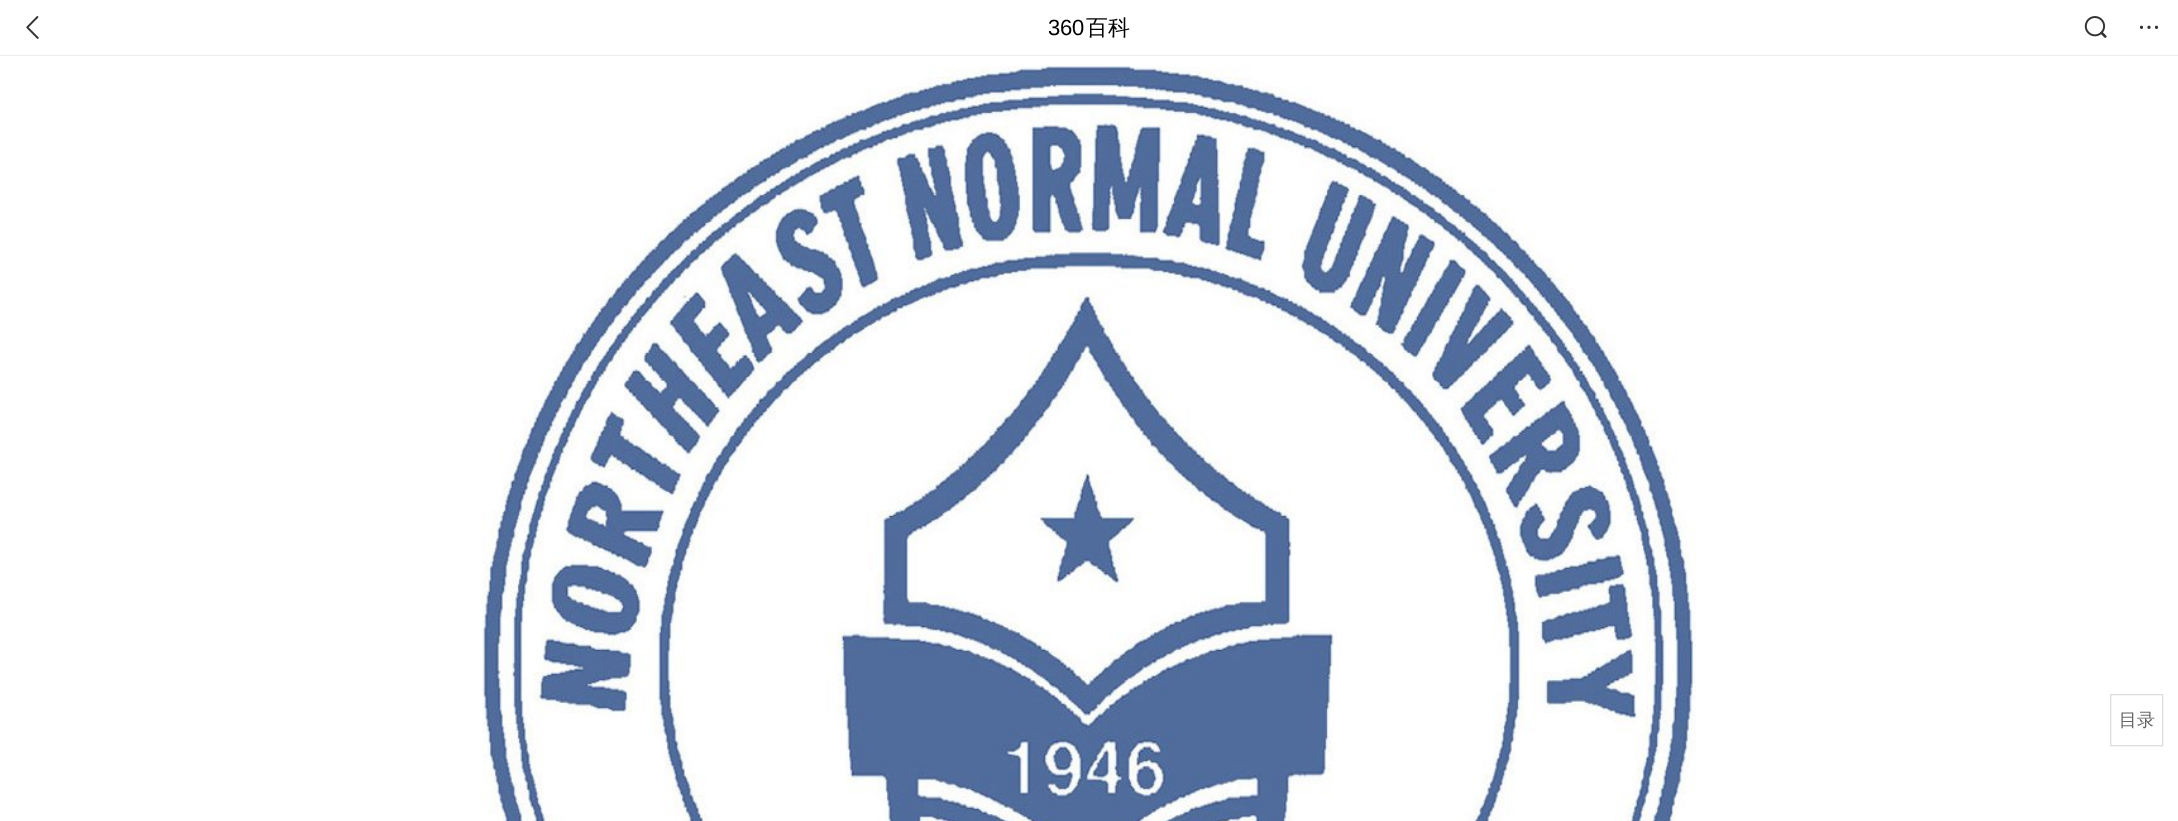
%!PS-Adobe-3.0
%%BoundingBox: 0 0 2178 821
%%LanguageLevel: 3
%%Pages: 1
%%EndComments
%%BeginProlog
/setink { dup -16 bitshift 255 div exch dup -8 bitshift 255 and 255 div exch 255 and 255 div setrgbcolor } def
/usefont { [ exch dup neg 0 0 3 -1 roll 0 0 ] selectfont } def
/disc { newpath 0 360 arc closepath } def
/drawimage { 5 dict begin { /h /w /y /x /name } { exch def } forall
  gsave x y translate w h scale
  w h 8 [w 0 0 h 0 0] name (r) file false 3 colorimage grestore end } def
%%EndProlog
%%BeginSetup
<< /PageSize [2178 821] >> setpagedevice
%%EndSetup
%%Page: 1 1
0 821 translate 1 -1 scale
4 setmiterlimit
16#FFFFFF setink
0 0 2178 821 rectfill
16#EDEDED setink
0 55 2178 1 rectfill
(img1.raw) 26 16 13 23 drawimage
/LiberationSans-Regular 22 usefont
16#000000 setink
1048 35 moveto (360) show
/WenQuanYiZenHei-Medium 22 usefont
1086 35 moveto (百科) show
(img2.raw) 2084 16 23 22 drawimage
16#333333 setink
2141.5 27.3 1.5 disc fill
2149 27.3 1.5 disc fill
2156.5 27.3 1.5 disc fill
16#DDDDDD setink
2110.5 694.5 52 51 rectstroke
/WenQuanYiZenHei-Medium 18 usefont
16#666666 setink
2119 726 moveto (目录) show
(img3.raw) 482 66 1214 755 drawimage
showpage
%%EOF
